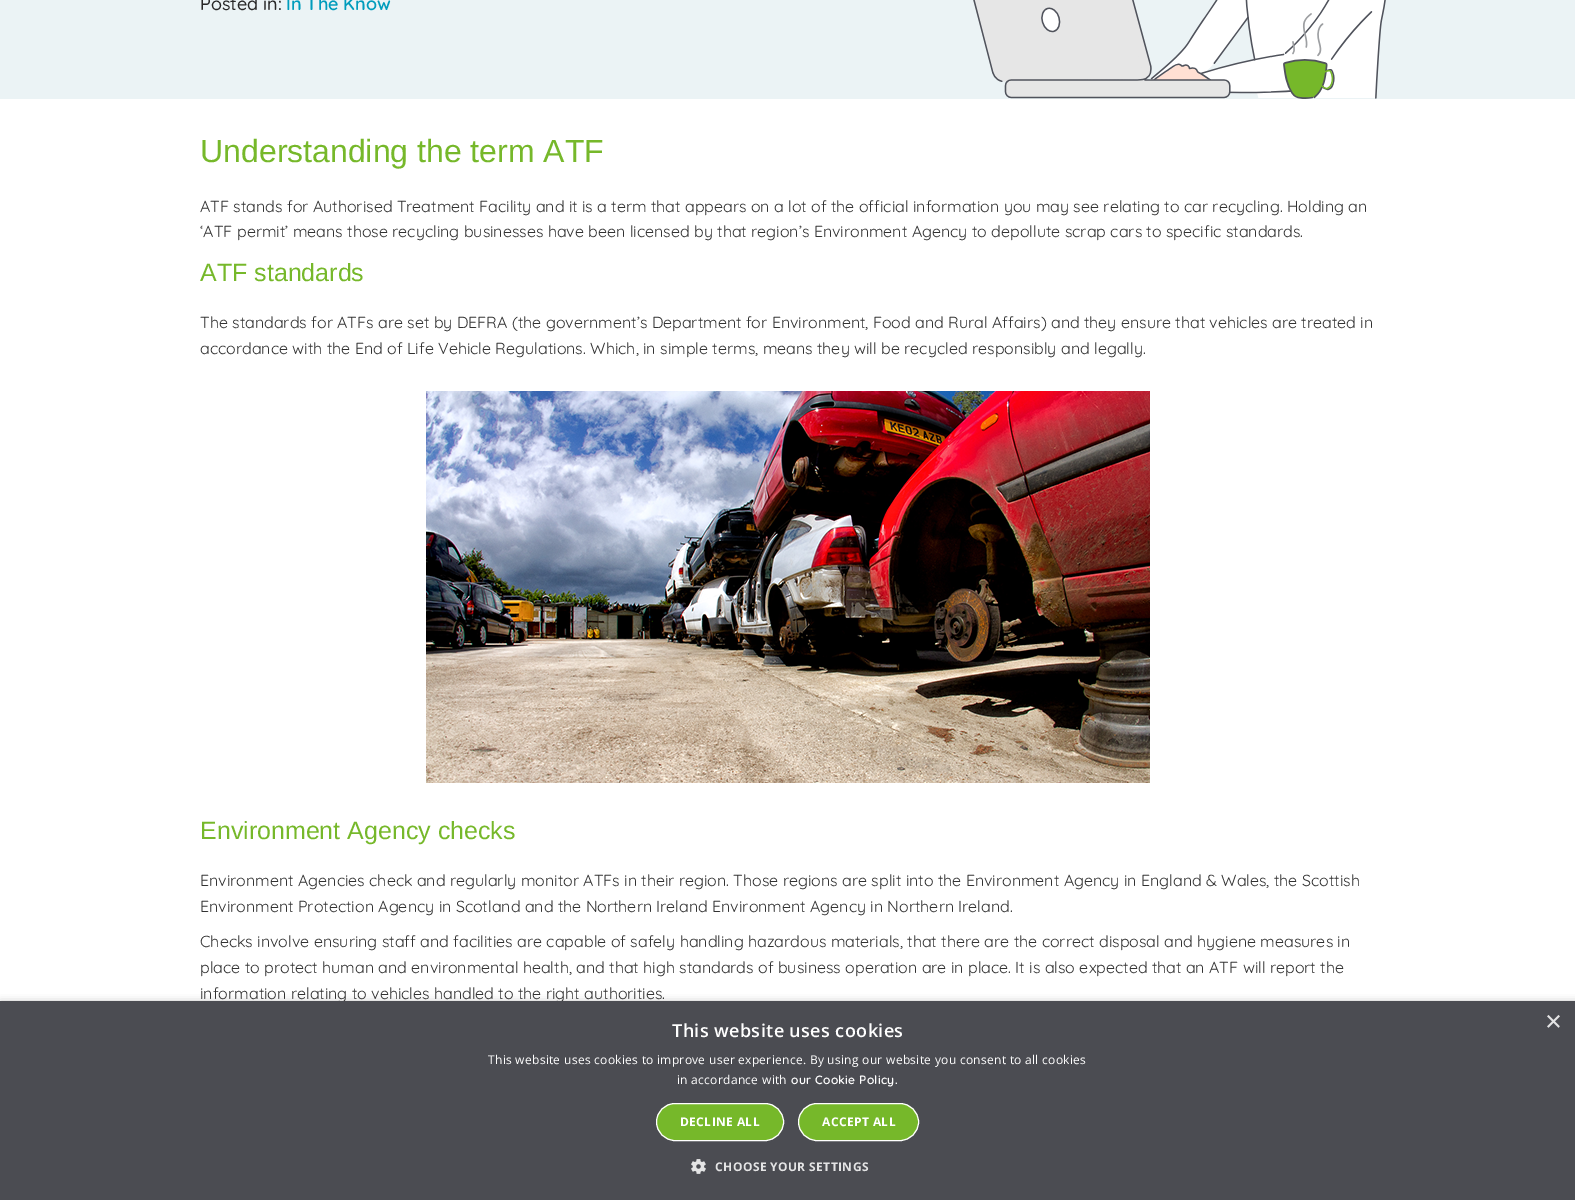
%!PS-Adobe-3.0
%%BoundingBox: 0 0 1575 1200
%%LanguageLevel: 3
%%Pages: 1
%%EndComments
%%BeginProlog
/setink { dup -16 bitshift 255 div exch dup -8 bitshift 255 and 255 div exch 255 and 255 div setrgbcolor } def
/usefont { [ exch dup neg 0 0 3 -1 roll 0 0 ] selectfont } def
/setalpha { dup .setfillconstantalpha .setstrokeconstantalpha } def
/rrect { 5 dict begin { /r /h /w /y /x } { exch def } forall
  x r add y moveto x w add y 2 copy h add r arct x w add y h add x 1 index r arct
  x y h add x y r arct x y 2 copy exch w add exch r arct closepath end } def
/softshadow { 12 dict begin { /a /b /q /h /w /y /x } { exch def } forall gsave /was 0 def
  9 -2 -9 { dup b mul 4 div /e exch def 1 sub .425 mul 2.718 exch exp 1 add a .99 .min exch div /now exch def
    1 1 now sub 1 was sub div sub setalpha /was now def
    w h .min e 2 mul add 0 gt { x e sub y e sub w e 2 mul add h e 2 mul add
      q e add b .6 mul add w h .min 2 div e add .min 0 .max rrect fill } if } for grestore end } def
/drawimage { 5 dict begin { /h /w /y /x /name } { exch def } forall
  gsave x y translate w h scale
  w h 8 [w 0 0 h 0 0] name (r) file false 3 colorimage grestore end } def
%%EndProlog
%%BeginSetup
<< /PageSize [1575 1200] /PageUsesTransparency true >> setpagedevice
%%EndSetup
%%Page: 1 1
0 .pushpdf14devicefilter
0 1200 translate 1 -1 scale
4 setmiterlimit
16#FFFFFF setink
0 0 1575 1200 rectfill
16#EBF3F5 setink
0 0 1575 99 rectfill
(img1.raw) 973 0 413 99 drawimage
/Quicksand-Medium 18 usefont
16#282828 setink
200 10 moveto (Posted in:) show
/Quicksand-SemiBold 18 usefont
16#009CBC setink
286 10 moveto (In The Know) show
/LiberationSans-Regular 32 usefont
16#76B82A setink
200 162 moveto (Understanding the term ATF) show
/Quicksand-Regular 16 usefont
16#323232 setink
200 212 moveto (ATF stands for Authorised Treatment Facility and it is a term that appears on a lot of the official information you may see relating to car recycling. Holding an) show
200 237 moveto (‘ATF permit’ means those recycling businesses have been licensed by that region’s Environment Agency to depollute scrap cars to specific standards.) show
/LiberationSans-Regular 25 usefont
16#76B82A setink
200 281 moveto (ATF standards) show
/Quicksand-Regular 16 usefont
16#323232 setink
200 328 moveto (The standards for ATFs are set by DEFRA \(the government’s Department for Environment, Food and Rural Affairs\) and they ensure that vehicles are treated in) show
200 354 moveto (accordance with the End of Life Vehicle Regulations. Which, in simple terms, means they will be recycled responsibly and legally.) show
(img2.raw) 426 391 724 392 drawimage
/LiberationSans-Regular 25 usefont
16#76B82A setink
200 839 moveto (Environment Agency checks) show
/Quicksand-Regular 16 usefont
16#323232 setink
[
    [(Environment Agencies check and regularly monitor ATFs in their region. Those regions are split into the Environment Agency in England & Wales, the Scottish) 200 886]
    [(Environment Protection Agency in Scotland and the Northern Ireland Environment Agency in Northern Ireland.) 200 912]
    [(Checks involve ensuring staff and facilities are capable of safely handling hazardous materials, that there are the correct disposal and hygiene measures in) 200 947]
    [(place to protect human and environmental health, and that high standards of business operation are in place. It is also expected that an ATF will report the) 200 973]
    [(information relating to vehicles handled to the right authorities.) 200 999]
] { aload pop moveto show } forall
16#000000 setink
1 1003 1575 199 0 4 0.35 softshadow
16#4B4C52 setink
0 1001 1575 199 rectfill
/LiberationSans-Regular 29 usefont
16#E4E4E5 setink
1545 1031 moveto (×) show
/OpenSans-SemiBold 18 usefont
16#FFFFFF setink
672 1037 moveto 0.4 0 (This website uses cookies) ashow
/OpenSans-Regular 12 usefont
488 1064 moveto 0.3 0 (This website uses cookies to improve user experience. By using our website you consent to all cookies) ashow
677 1084 moveto 0.3 0 (in accordance with) ashow
/Quicksand-SemiBold 12 usefont
791 1084 moveto 0.3 0 (our Cookie Policy.) ashow
16#76B82A setink
656.5 1103.5 127 37 18.5 rrect gsave fill grestore
16#FFFFFF setink
stroke
/OpenSans-Bold 12 usefont
680 1126 moveto 0.4 0 (DECLINE ALL) ashow
16#76B82A setink
798.5 1103.5 120 37 18.5 rrect gsave fill grestore
16#FFFFFF setink
stroke
822 1126 moveto 0.4 0 (ACCEPT ALL) ashow
(img3.raw) 691 1159 15 15 drawimage
16#E4E4E5 setink
715 1171 moveto 0.4 0 (CHOOSE YOUR SETTINGS) ashow
.poppdf14devicefilter showpage
%%EOF
